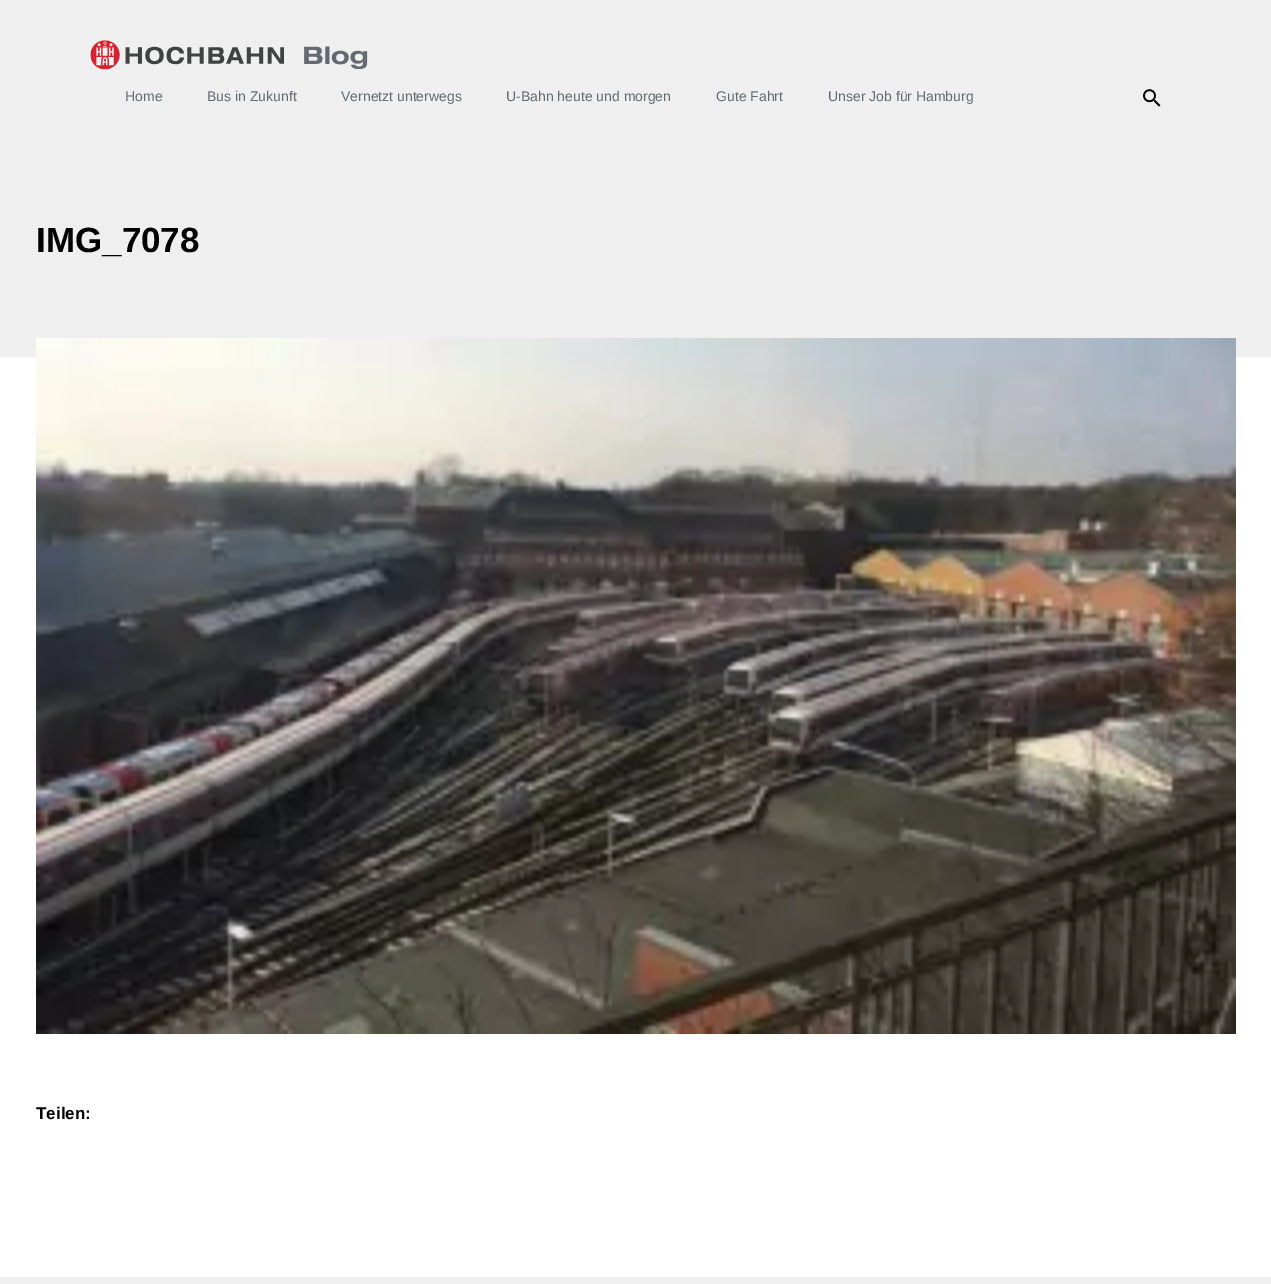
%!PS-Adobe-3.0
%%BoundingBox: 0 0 1271 1284
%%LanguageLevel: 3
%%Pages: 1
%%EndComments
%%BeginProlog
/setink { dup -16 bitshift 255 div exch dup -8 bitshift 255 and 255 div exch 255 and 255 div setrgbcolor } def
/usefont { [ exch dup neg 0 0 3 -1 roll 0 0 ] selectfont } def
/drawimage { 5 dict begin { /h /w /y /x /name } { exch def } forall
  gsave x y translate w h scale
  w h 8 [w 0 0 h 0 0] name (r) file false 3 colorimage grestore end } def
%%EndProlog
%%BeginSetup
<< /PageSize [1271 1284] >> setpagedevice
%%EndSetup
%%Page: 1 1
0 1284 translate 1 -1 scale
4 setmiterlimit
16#FFFFFF setink
0 0 1271 1284 rectfill
16#EFEFEF setink
0 0 1271 357 rectfill
(img1.raw) 90 40 278 30 drawimage
/LiberationSans-Regular 14 usefont
16#626B72 setink
[
    [(Home) 125 101]
    [(Bus in Zukunft) 207 101]
    [(Vernetzt unterwegs) 341 101]
    [(U-Bahn heute und morgen) 506 101]
    [(Gute Fahrt) 716 101]
    [(Unser Job für Hamburg) 828 101]
] { aload pop moveto show } forall
(img2.raw) 1143 89 18 18 drawimage
/LiberationSans-Bold 35 usefont
16#000000 setink
36 252 moveto (IMG_7078) show
(img3.raw) 36 338 1200 696 drawimage
/LiberationSans-Bold 17 usefont
36 1119 moveto (Teilen:) show
16#EFEFEF setink
0 1277 1271 7 rectfill
showpage
%%EOF
